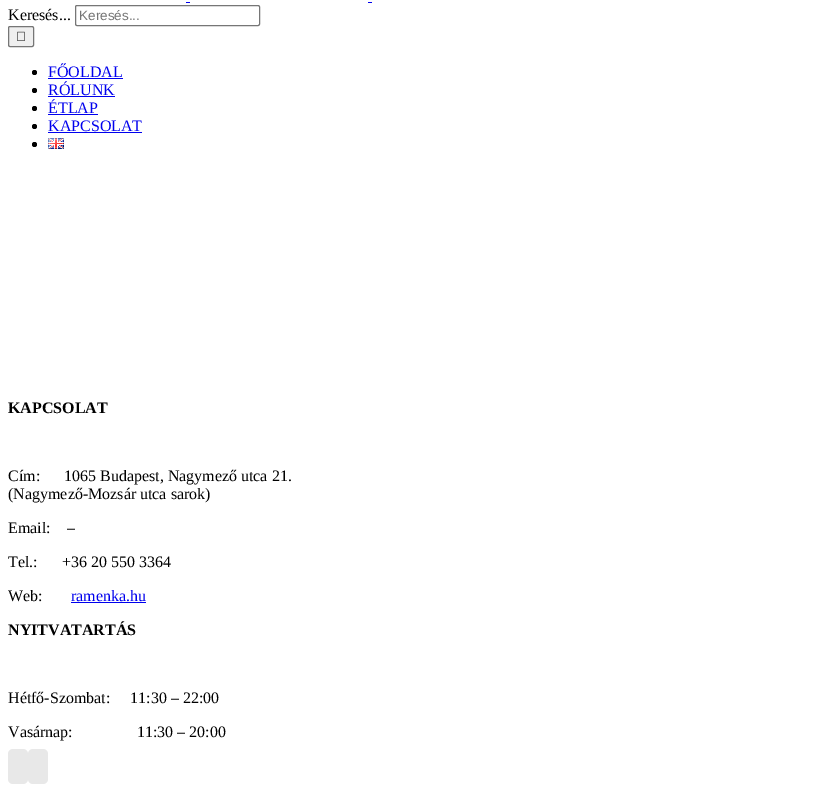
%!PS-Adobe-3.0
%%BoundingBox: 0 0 817 797
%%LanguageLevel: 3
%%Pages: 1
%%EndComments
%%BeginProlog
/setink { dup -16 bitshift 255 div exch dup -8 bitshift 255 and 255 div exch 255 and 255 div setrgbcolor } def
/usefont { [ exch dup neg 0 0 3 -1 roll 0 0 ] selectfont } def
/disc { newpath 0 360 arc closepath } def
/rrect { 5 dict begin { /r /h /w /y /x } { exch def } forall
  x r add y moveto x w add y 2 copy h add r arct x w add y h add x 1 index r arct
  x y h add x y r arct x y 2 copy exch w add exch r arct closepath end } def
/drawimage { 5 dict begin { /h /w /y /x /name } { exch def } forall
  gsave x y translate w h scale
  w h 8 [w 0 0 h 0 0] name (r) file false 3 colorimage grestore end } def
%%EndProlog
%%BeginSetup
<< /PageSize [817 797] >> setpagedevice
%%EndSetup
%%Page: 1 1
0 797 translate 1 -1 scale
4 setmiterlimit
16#FFFFFF setink
0 0 817 797 rectfill
16#0000EE setink
186 2 4 1 rectfill
368 2 4 1 rectfill
/LiberationSerif-Regular 16 usefont
16#000000 setink
8 20 moveto (Keresés...) show
16#767676 setink
75.5 5.5 184 20 1.5 rrect stroke
/LiberationSans-Regular 13.5 usefont
16#757575 setink
79 20 moveto (Keresés...) show
16#EFEFEF setink
8.5 26.5 25 20 1.5 rrect gsave fill grestore
16#767676 setink
stroke
(img1.raw) 17 31 8 10 drawimage
16#000000 setink
34.5 72.5 2.5 disc fill
/LiberationSerif-Regular 16 usefont
16#0000EE setink
48 77 moveto (FŐOLDAL) show
48 78 75 1 rectfill
16#000000 setink
34.5 90.5 2.5 disc fill
16#0000EE setink
48 95 moveto (RÓLUNK) show
48 96 67 1 rectfill
16#000000 setink
34.5 108.5 2.5 disc fill
16#0000EE setink
48 113 moveto (ÉTLAP) show
48 114 50 1 rectfill
16#000000 setink
34.5 126.5 2.5 disc fill
16#0000EE setink
48 131 moveto (KAPCSOLAT) show
48 132 94 1 rectfill
16#000000 setink
34.5 144.5 2.5 disc fill
(img2.raw) 48 138 16 11 drawimage
/LiberationSerif-Bold 16 usefont
8 413 moveto (KAPCSOLAT) show
/LiberationSerif-Regular 16 usefont
[
    [(Cím:      1065 Budapest, Nagymező utca 21.) 8 481]
    [(\(Nagymező-Mozsár utca sarok\)) 8 499]
    [(Email:    –) 8 533]
    [(Tel.:      +36 20 550 3364) 8 567]
    [(Web:) 8 601]
] { aload pop moveto show } forall
16#0000EE setink
71 601 moveto (ramenka.hu) show
71 602 75 1 rectfill
/LiberationSerif-Bold 16 usefont
16#000000 setink
8 635 moveto (NYITVATARTÁS) show
/LiberationSerif-Regular 16 usefont
8 703 moveto (Hétfő-Szombat:     11:30 – 22:00) show
8 737 moveto (Vasárnap:                11:30 – 20:00) show
16#E8E8E8 setink
8 749 20 35 5 rrect fill
28 749 20 35 5 rrect fill
showpage
%%EOF
